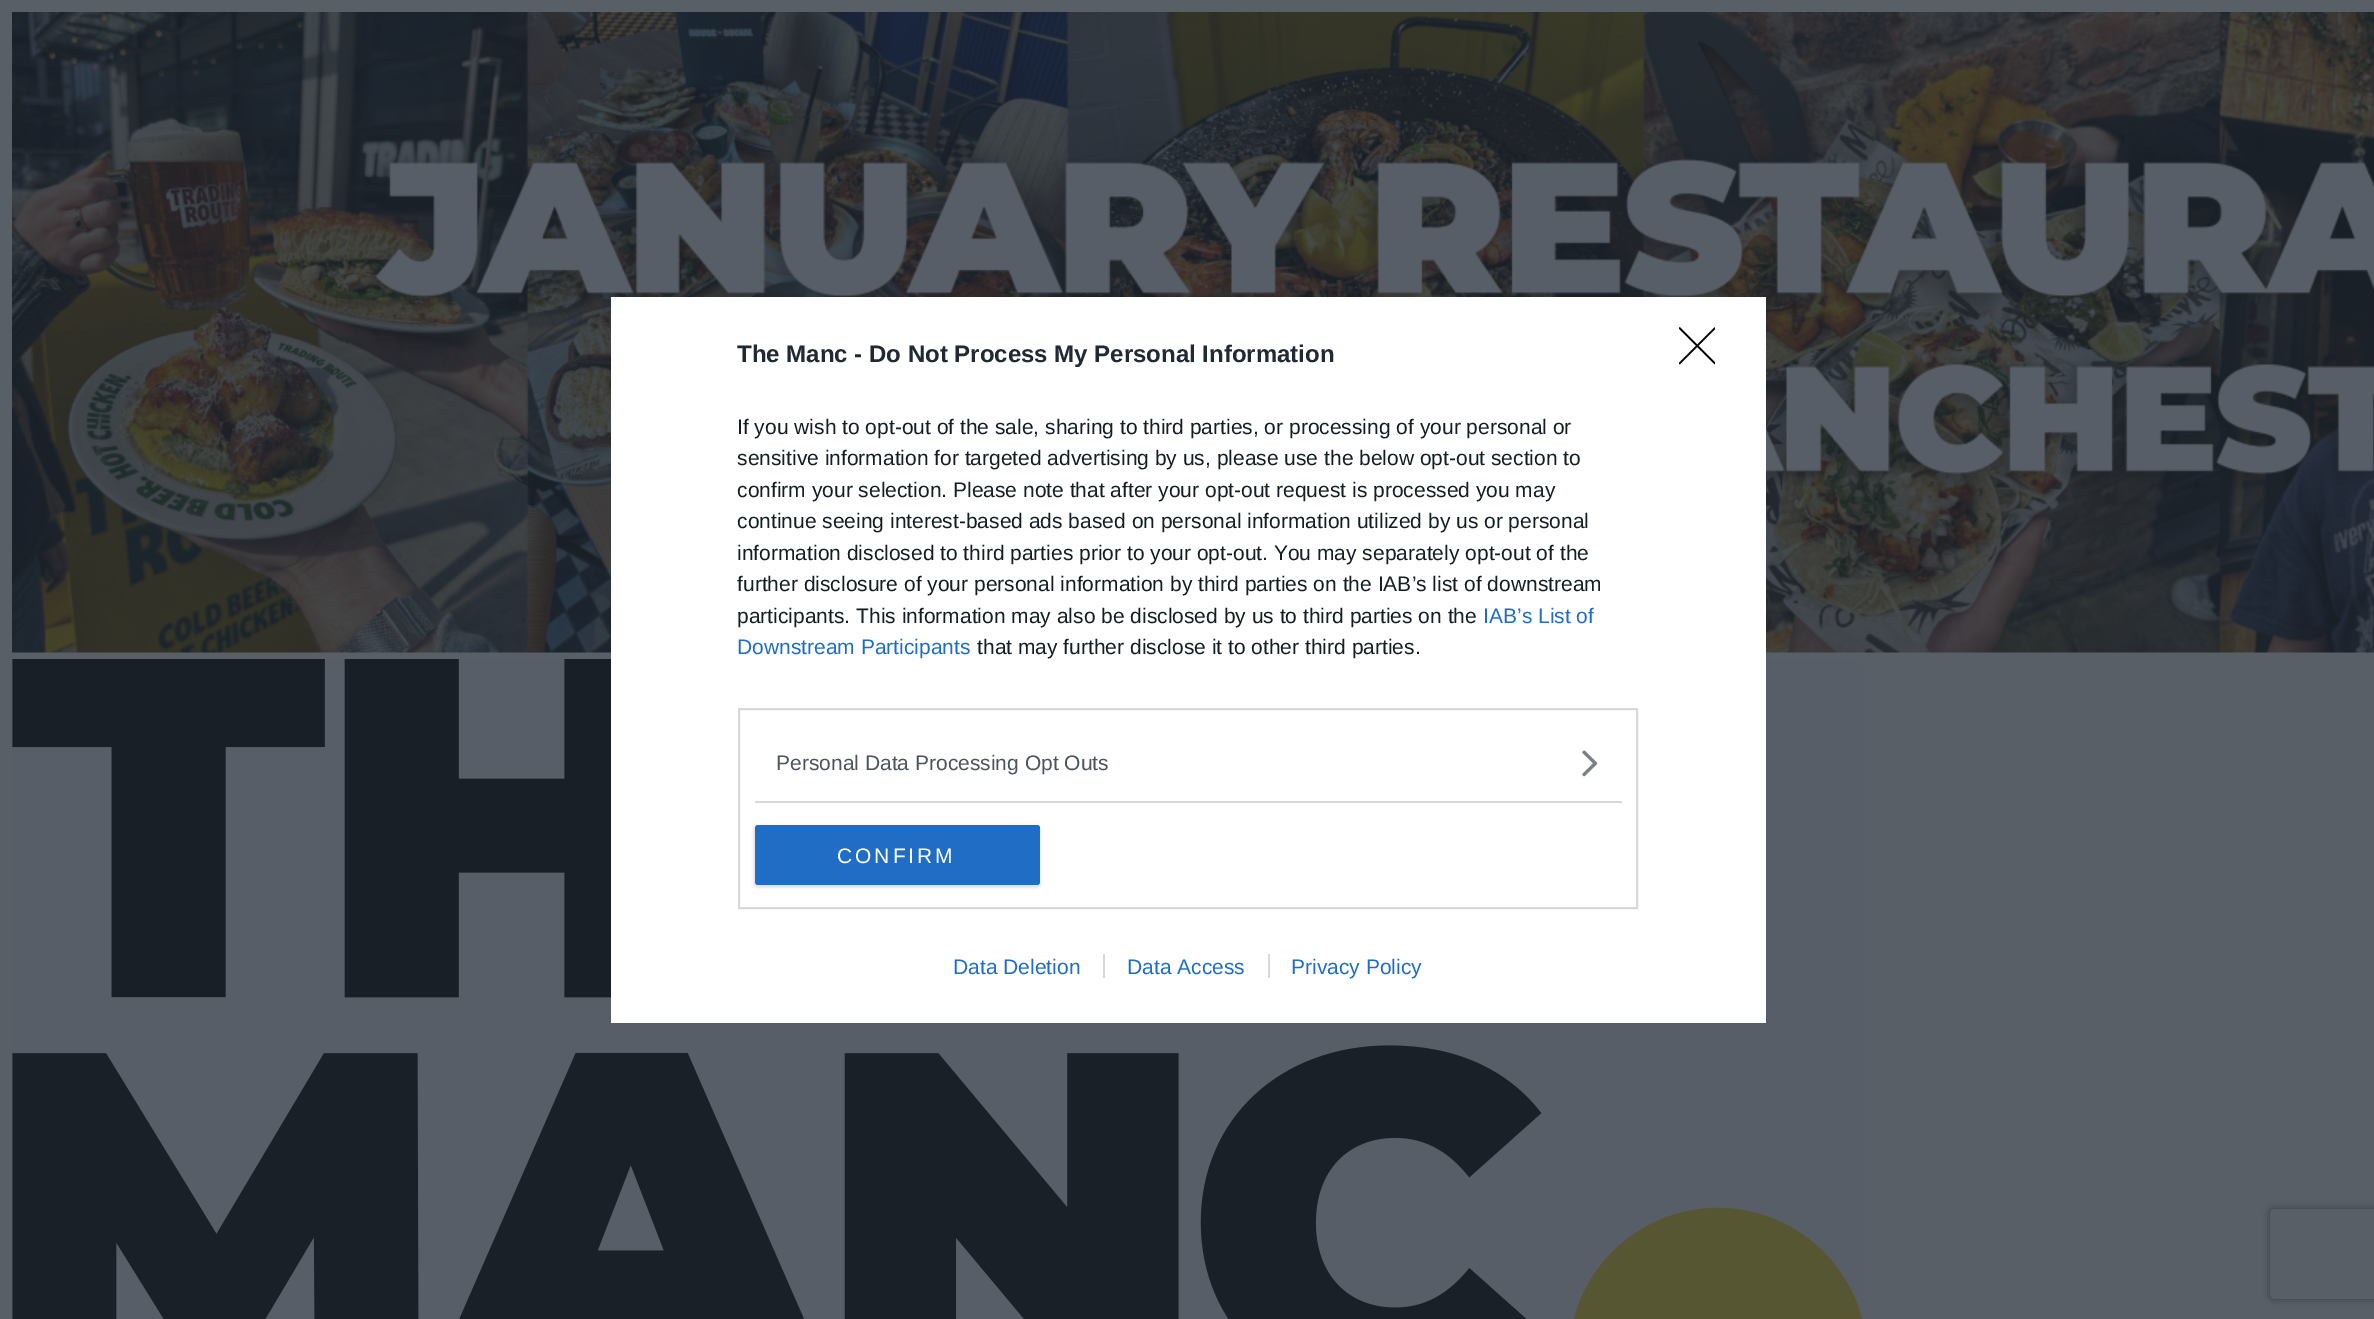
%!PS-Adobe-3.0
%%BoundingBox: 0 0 2374 1319
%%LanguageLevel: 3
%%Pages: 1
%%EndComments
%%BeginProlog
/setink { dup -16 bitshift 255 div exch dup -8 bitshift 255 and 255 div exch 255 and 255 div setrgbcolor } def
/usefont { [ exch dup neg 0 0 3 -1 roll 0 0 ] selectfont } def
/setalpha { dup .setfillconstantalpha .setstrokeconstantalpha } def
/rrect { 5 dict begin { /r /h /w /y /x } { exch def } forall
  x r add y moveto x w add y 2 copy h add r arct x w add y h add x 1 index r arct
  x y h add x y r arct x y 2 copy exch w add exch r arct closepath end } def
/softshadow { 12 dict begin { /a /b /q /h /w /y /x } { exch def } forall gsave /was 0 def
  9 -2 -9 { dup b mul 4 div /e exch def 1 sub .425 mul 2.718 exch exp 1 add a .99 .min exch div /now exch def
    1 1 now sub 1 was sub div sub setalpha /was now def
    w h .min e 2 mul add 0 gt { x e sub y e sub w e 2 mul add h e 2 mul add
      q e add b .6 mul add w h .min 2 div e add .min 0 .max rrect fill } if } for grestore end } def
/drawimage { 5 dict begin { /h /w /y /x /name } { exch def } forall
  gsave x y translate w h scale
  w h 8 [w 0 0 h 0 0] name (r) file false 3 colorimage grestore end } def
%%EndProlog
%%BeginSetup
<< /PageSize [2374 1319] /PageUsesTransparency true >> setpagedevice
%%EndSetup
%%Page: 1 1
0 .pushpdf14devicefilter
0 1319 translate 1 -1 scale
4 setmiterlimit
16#595F67 setink
0 0 2374 1319 rectfill
(img1.raw) 12 12 2362 641 drawimage
(img3.raw) 12 659 1851 660 drawimage
16#FFFFFF setink
611 297 1155 726 rectfill
/LiberationSans-Bold 24 usefont
16#212934 setink
737 362 moveto (The Manc - Do Not Process My Personal Information) show
/LiberationSans-Regular 21 usefont
16#141E23 setink
[
    [(If you wish to opt-out of the sale, sharing to third parties, or processing of your personal or) 737 434]
    [(sensitive information for targeted advertising by us, please use the below opt-out section to) 737 465]
    [(confirm your selection. Please note that after your opt-out request is processed you may) 737 497]
    [(continue seeing interest-based ads based on personal information utilized by us or personal) 737 528]
    [(information disclosed to third parties prior to your opt-out. You may separately opt-out of the) 737 560]
    [(further disclosure of your personal information by third parties on the IAB’s list of downstream) 737 591]
    [(participants. This information may also be disclosed by us to third parties on the) 737 623]
] { aload pop moveto show } forall
16#206DC5 setink
1483 623 moveto (IAB’s List of) show
737 654 moveto (Downstream Participants) show
16#141E23 setink
977 654 moveto (that may further disclose it to other third parties.) show
16#D8D8D8 setink
2 setlinewidth
739 709 898 199 rectstroke
755 801 867 2 rectfill
16#4D545D setink
776 770 moveto (Personal Data Processing Opt Outs) show
(img2.raw) 1582 750 16 27 drawimage
16#000000 setink
753 825 288 63 5 1 0.1 softshadow
16#206DC5 setink
755 825 285 60 3 rrect fill
16#FFFFFF setink
837 863 moveto 3 0 (CONFIRM) ashow
gsave
1679 327 36 38 rectclip
16#000000 setink
1.5 setlinewidth
1 setlinecap
1 setlinejoin
1679.5 328 moveto 1715 363.5 lineto 1715 328 moveto 1679.5 363.5 lineto stroke
grestore
16#206DC5 setink
953 974 moveto (Data Deletion) show
1127 974 moveto (Data Access) show
16#D8D8D8 setink
1103 954 2 24 rectfill
16#206DC5 setink
1291 974 moveto (Privacy Policy) show
16#D8D8D8 setink
1268 954 2 24 rectfill
gsave
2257 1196 moveto 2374 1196 lineto 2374 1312 lineto 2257 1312 lineto closepath 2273 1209 moveto 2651 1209 lineto 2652.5 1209 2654 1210.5 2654 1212 curveto 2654 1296 lineto 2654 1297.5 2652.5 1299 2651 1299 curveto 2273 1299 lineto 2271.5 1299 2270 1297.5 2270 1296 curveto 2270 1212 lineto 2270 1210.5 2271.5 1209 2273 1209 curveto closepath eoclip newpath
16#393F47 setink
2270 1209 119 90 3 4 1 softshadow
grestore
.poppdf14devicefilter showpage
%%EOF
